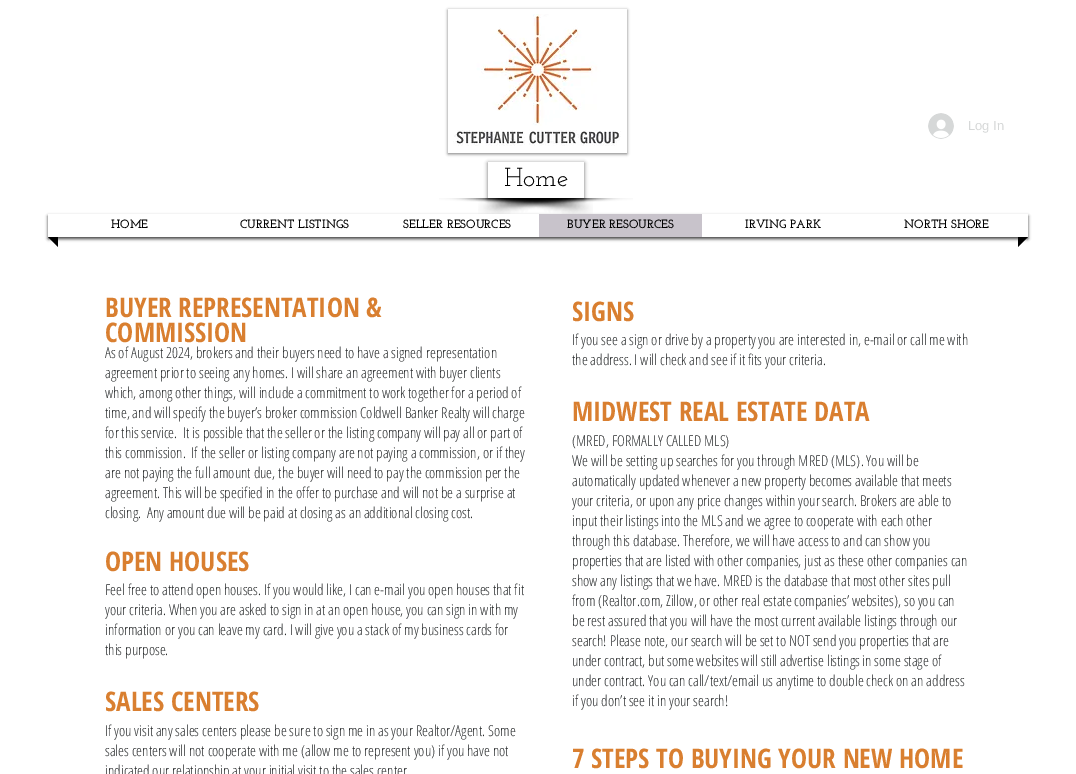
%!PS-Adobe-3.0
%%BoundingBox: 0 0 1076 774
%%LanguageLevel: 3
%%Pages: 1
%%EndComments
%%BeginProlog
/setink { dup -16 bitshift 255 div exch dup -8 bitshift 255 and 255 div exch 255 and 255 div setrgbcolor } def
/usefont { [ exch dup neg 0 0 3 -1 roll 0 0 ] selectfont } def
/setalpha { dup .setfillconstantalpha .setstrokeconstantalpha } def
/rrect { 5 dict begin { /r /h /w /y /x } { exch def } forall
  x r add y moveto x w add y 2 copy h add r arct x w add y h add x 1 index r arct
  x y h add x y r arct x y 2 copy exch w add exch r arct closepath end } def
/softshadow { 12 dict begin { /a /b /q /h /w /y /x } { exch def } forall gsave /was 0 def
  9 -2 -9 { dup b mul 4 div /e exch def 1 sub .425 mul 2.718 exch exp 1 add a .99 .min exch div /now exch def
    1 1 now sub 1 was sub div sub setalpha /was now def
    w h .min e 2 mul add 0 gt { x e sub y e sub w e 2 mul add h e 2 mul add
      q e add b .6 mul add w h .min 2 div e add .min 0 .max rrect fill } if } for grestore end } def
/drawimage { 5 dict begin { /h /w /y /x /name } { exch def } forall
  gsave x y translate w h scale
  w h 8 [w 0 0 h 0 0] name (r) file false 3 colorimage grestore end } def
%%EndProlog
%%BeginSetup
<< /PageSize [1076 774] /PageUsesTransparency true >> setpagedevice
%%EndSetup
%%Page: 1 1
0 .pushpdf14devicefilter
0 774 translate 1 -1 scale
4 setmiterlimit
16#FFFFFF setink
0 0 1076 774 rectfill
gsave
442 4 moveto 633 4 lineto 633 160 lineto 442 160 lineto closepath 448 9 moveto 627 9 lineto 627 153 lineto 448 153 lineto closepath eoclip newpath
16#000000 setink
448 10 179 144 0 1.5 0.5 softshadow
grestore
(img1.raw) 453 14 168 132 drawimage
(img2.raw) 928 113 26 26 drawimage
/LiberationSans-Regular 13 usefont
16#D6D8D8 setink
968 130 moveto (Log In) show
(img4.raw) 479 198 154 16 drawimage
(img3.raw) 439 198 154 16 drawimage
gsave
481 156 moveto 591 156 lineto 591 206 lineto 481 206 lineto closepath 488 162 moveto 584 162 lineto 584 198 lineto 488 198 lineto closepath eoclip newpath
16#000000 setink
488 163 96 36 0 2 0.6 softshadow
grestore
/JosefinSlab-Regular 26 usefont
16#000000 setink
504 186 moveto (Home) show
48 237 moveto 58 237 lineto 58 247 lineto closepath fill
1018 237 moveto 1028 237 lineto 1018 247 lineto closepath fill
48 216 980 23 0 1.5 0.7 softshadow
16#FFFFFF setink
48 214 980 23 rectfill
/JosefinSlab-Bold 12 usefont
16#000000 setink
[
    [(HOME) 111 228]
    [(CURRENT LISTINGS) 240 228]
    [(SELLER RESOURCES) 403 228]
] { aload pop moveto show } forall
16#C8C3CB setink
539 214 163 23 rectfill
16#000000 setink
[
    [(BUYER RESOURCES) 567 228]
    [(IRVING PARK) 745 228]
    [(NORTH SHORE) 904 228]
] { aload pop moveto show } forall
/OpenSansCondensed-Bold 27 usefont
16#D97F30 setink
105 317 moveto (BUYER REPRESENTATION &) show
105 342 moveto (COMMISSION) show
/OpenSansCondensed-Light 15 usefont
16#292C2D setink
[
    [(As of August 2024, brokers and their buyers need to have a signed representation) 105 358]
    [(agreement prior to seeing any homes. I will share an agreement with buyer clients) 105 378]
    [(which, among other things, will include a commitment to work together for a period of) 105 398]
    [(time, and will specify the buyer’s broker commission Coldwell Banker Realty will charge) 105 418]
    [(for this service.  It is possible that the seller or the listing company will pay all or part of) 105 438]
    [(this commission.  If the seller or listing company are not paying a commission, or if they) 105 458]
    [(are not paying the full amount due, the buyer will need to pay the commission per the) 105 478]
    [(agreement. This will be specified in the offer to purchase and will not be a surprise at) 105 498]
    [(closing.  Any amount due will be paid at closing as an additional closing cost.) 105 518]
] { aload pop moveto show } forall
/OpenSansCondensed-Bold 27 usefont
16#D97F30 setink
105 571 moveto (OPEN HOUSES) show
/OpenSansCondensed-Light 15 usefont
16#292C2D setink
[
    [(Feel free to attend open houses. If you would like, I can e-mail you open houses that fit) 105 595]
    [(your criteria. When you are asked to sign in at an open house, you can sign in with my) 105 615]
    [(information or you can leave my card. I will give you a stack of my business cards for) 105 635]
    [(this purpose.) 105 655]
] { aload pop moveto show } forall
/OpenSansCondensed-Bold 27 usefont
16#D97F30 setink
105 711 moveto (SALES CENTERS) show
/OpenSansCondensed-Light 15 usefont
16#292C2D setink
[
    [(If you visit any sales centers please be sure to sign me in as your Realtor/Agent. Some) 105 736]
    [(sales centers will not cooperate with me \(allow me to represent you\) if you have not) 105 756]
    [(indicated our relationship at your initial visit to the sales center) 105 776]
] { aload pop moveto show } forall
/OpenSansCondensed-Bold 27 usefont
16#D97F30 setink
572 321 moveto (SIGNS) show
/OpenSansCondensed-Light 15 usefont
16#292C2D setink
572 345 moveto (If you see a sign or drive by a property you are interested in, e-mail or call me with) show
572 365 moveto (the address. I will check and see if it fits your criteria.) show
/OpenSansCondensed-Bold 27 usefont
16#D97F30 setink
572 421 moveto (MIDWEST REAL ESTATE DATA) show
/OpenSansCondensed-Light 15 usefont
16#292C2D setink
[
    [(\(MRED, FORMALLY CALLED MLS\)) 572 446]
    [(We will be setting up searches for you through MRED \(MLS\). You will be) 572 466]
    [(automatically updated whenever a new property becomes available that meets) 572 486]
    [(your criteria, or upon any price changes within your search. Brokers are able to) 572 506]
    [(input their listings into the MLS and we agree to cooperate with each other) 572 526]
    [(through this database. Therefore, we will have access to and can show you) 572 546]
    [(properties that are listed with other companies, just as these other companies can) 572 566]
    [(show any listings that we have. MRED is the database that most other sites pull) 572 586]
    [(from \(Realtor.com, Zillow, or other real estate companies’ websites\), so you can) 572 606]
    [(be rest assured that you will have the most current available listings through our) 572 626]
    [(search! Please note, our search will be set to NOT send you properties that are) 572 646]
    [(under contract, but some websites will still advertise listings in some stage of) 572 666]
    [(under contract. You can call/text/email us anytime to double check on an address) 572 686]
    [(if you don’t see it in your search!) 572 706]
] { aload pop moveto show } forall
/OpenSansCondensed-Bold 27 usefont
16#D97F30 setink
572 768 moveto (7 STEPS TO BUYING YOUR NEW HOME) show
.poppdf14devicefilter showpage
%%EOF
